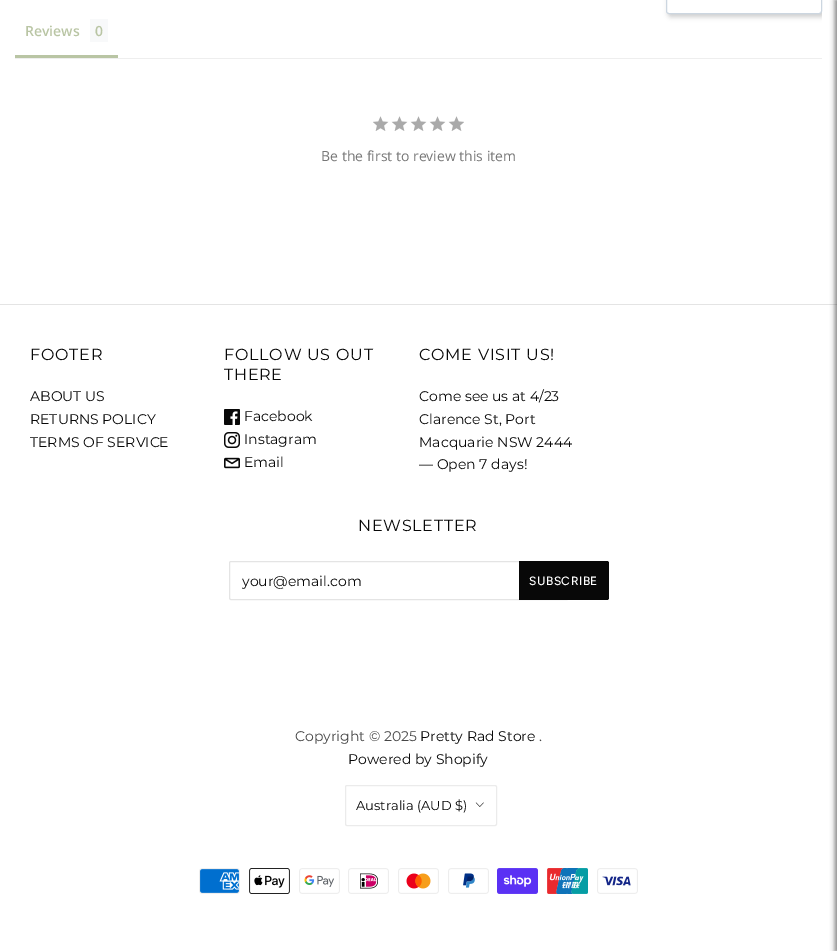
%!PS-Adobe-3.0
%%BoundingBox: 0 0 837 951
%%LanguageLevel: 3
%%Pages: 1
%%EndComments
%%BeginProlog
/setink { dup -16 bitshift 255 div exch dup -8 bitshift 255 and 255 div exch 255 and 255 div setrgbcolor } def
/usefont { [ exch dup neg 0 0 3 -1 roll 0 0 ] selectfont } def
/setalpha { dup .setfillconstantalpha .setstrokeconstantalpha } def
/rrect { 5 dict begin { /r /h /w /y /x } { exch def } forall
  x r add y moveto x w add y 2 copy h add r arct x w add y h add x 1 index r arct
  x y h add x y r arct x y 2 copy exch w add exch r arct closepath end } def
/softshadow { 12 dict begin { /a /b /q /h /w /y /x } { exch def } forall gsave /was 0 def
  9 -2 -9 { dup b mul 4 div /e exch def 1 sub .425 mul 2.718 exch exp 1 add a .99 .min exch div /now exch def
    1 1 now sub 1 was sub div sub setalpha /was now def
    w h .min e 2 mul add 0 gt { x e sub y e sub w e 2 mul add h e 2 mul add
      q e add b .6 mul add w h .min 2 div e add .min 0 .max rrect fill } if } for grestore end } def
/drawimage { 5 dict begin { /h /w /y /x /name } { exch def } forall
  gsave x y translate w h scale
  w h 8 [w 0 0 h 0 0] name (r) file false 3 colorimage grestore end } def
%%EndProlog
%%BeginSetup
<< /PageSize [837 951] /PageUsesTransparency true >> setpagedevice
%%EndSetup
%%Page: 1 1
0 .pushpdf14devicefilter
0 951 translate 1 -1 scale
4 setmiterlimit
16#FFFFFF setink
0 0 837 951 rectfill
gsave
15 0 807 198 rectclip
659 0 moveto 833 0 lineto 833 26 lineto 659 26 lineto closepath 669 -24 moveto 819 -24 lineto 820.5 -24 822 -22.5 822 -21 curveto 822 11 lineto 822 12.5 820.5 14 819 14 curveto 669 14 lineto 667.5 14 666 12.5 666 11 curveto 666 -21 lineto 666 -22.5 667.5 -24 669 -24 curveto closepath eoclip newpath
16#888888 setink
668 -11 156 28 3 2.5 0.42 softshadow
grestore
16#CCD6E0 setink
666.5 -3.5 155 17 2.5 rrect stroke
16#EEEEEE setink
15 58 807 1 rectfill
16#B9C5A4 setink
15 55 103 3 rectfill
/OpenSans-SemiBold 14 usefont
25 36 moveto (Reviews) show
16#F8F9FA setink
90 19 18 23 rectfill
16#B9C5A4 setink
95 36 moveto (0) show
(img1.raw) 373 116 91 15 drawimage
/OpenSans-Regular 14 usefont
16#777777 setink
321 161 moveto (Be the first to review this item) show
16#E4E4E4 setink
0 304 837 1 rectfill
16#000000 setink
835 0 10 951 0 2.5 0.5 softshadow
/Montserrat-Regular 16 usefont
16#080808 setink
30 360 moveto 0.75 0 (FOOTER) ashow
/Montserrat-Regular 14 usefont
[
    [(ABOUT US) 30 401]
    [(RETURNS POLICY) 30 424]
    [(TERMS OF SERVICE) 30 447]
] { aload pop moveto show } forall
/Montserrat-Regular 16 usefont
224 360 moveto 0.75 0 (FOLLOW US OUT) ashow
224 380 moveto 0.75 0 (THERE) ashow
(img2.raw) 224 409 16 16 drawimage
/Montserrat-Regular 14 usefont
244 421 moveto (Facebook) show
(img3.raw) 224 432 16 16 drawimage
244 444 moveto (Instagram) show
(img4.raw) 224 457 16 12 drawimage
244 467 moveto (Email) show
/Montserrat-Regular 16 usefont
419 360 moveto 0.75 0 (COME VISIT US!) ashow
/Montserrat-Regular 14 usefont
[
    [(Come see us at 4/23) 419 401]
    [(Clarence St, Port) 419 424]
    [(Macquarie NSW 2444) 419 447]
    [(— Open 7 days!) 419 469]
] { aload pop moveto show } forall
/Montserrat-Regular 16 usefont
358 531 moveto 0.75 0 (NEWSLETTER) ashow
16#E4E4E4 setink
229.5 561.5 339 38 1.5 rrect stroke
gsave
242 572 225 18 rectclip
/Montserrat-Regular 14 usefont
16#080808 setink
242 586 moveto (your@email.com) show
grestore
16#080808 setink
519 561 moveto 607 561 lineto 608 561 609 562 609 563 curveto 609 598 lineto 609 599 608 600 607 600 curveto 519 600 lineto closepath fill
/Figtree-Medium 12 usefont
16#FFFFFF setink
529 585 moveto 0.5 0 (SUBSCRIBE) ashow
/Montserrat-Regular 14 usefont
16#464646 setink
295 741 moveto (Copyright © 2025) show
16#080808 setink
420 741 moveto (Pretty Rad Store) show
16#464646 setink
539 741 moveto (.) show
16#080808 setink
348 764 moveto (Powered by Shopify) show
16#EBEBEB setink
345.5 785.5 151 40 1.5 rrect stroke
/Montserrat-Regular 13 usefont
16#080808 setink
356 810 moveto (Australia \(AUD $\)) show
(img5.raw) 475 802 9 5 drawimage
(img6.raw) 199 868 41 26 drawimage
(img7.raw) 249 868 41 26 drawimage
(img8.raw) 299 868 41 26 drawimage
(img9.raw) 348 868 41 26 drawimage
(img10.raw) 398 868 41 26 drawimage
(img11.raw) 448 868 41 26 drawimage
(img12.raw) 497 868 41 26 drawimage
(img13.raw) 547 868 41 26 drawimage
(img14.raw) 597 868 41 26 drawimage
.poppdf14devicefilter showpage
%%EOF
